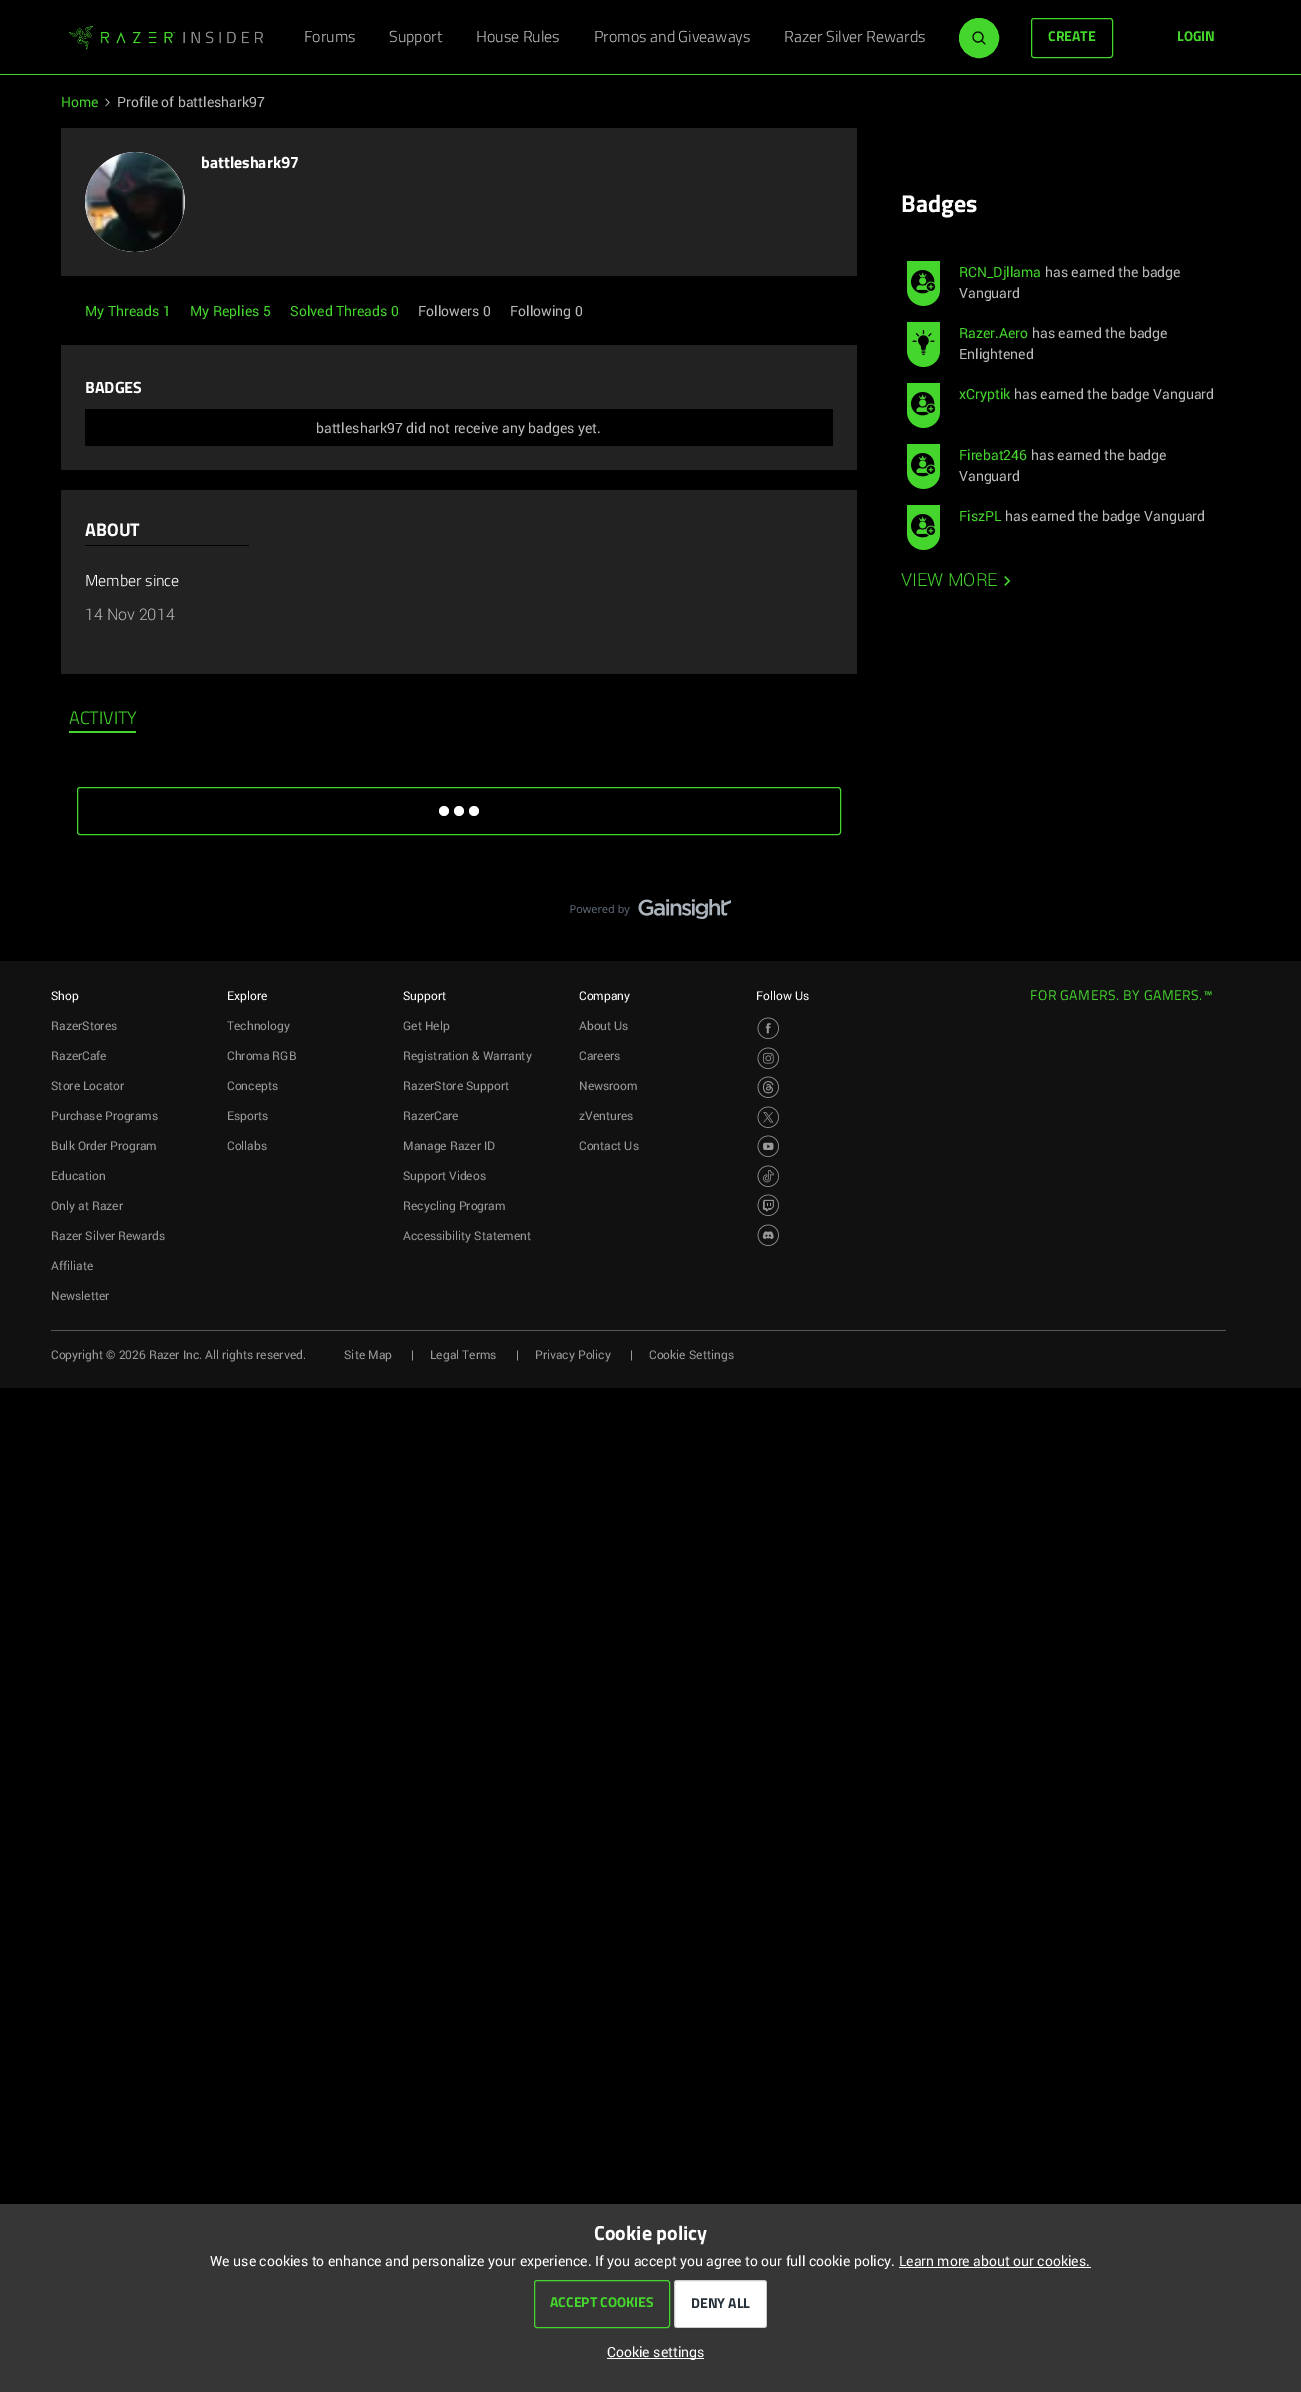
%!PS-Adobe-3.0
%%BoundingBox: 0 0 1301 2392
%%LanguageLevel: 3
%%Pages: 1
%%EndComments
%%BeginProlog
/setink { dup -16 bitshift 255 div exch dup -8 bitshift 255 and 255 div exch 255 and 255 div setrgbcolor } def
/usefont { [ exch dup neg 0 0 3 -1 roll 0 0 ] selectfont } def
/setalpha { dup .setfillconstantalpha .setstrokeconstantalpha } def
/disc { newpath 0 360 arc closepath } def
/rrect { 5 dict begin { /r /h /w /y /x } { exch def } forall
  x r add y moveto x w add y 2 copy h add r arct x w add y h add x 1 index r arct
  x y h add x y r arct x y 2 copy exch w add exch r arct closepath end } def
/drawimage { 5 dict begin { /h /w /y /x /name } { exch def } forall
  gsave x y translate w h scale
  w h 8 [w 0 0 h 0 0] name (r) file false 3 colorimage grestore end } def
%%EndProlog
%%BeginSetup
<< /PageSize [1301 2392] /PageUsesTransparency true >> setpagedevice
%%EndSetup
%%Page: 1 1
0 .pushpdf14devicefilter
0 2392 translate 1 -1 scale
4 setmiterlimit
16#000000 setink
0 0 1301 2392 rectfill
16#44D62C setink
0 74 1301 1 rectfill
(img1.raw) 69 26 194 24 drawimage
/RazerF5-Light 16 usefont
16#BBBBBB setink
[
    [(Forums) 304 42]
    [(Support) 389 42]
    [(House Rules) 476 42]
    [(Promos and Giveaways) 594 42]
    [(Razer Silver Rewards) 784 42]
] { aload pop moveto show } forall
16#44D62C setink
979 38 19.5 disc gsave fill grestore
16#44D62D setink
stroke
16#000000 setink
978 37 5 disc stroke
1 setlinecap
982 41 moveto 985 44 lineto stroke
16#44D62C setink
0 setlinecap
1031.5 18.5 81 39 2.5 rrect stroke
/RazerF5-Bold 14 usefont
1048 41 moveto (CREATE) show
1177 41 moveto (LOGIN) show
/Roboto-Regular 14 usefont
61 107 moveto (Home) show
(img2.raw) 105 98 5 9 drawimage
16#BBBBBB setink
117 107 moveto (Profile of battleshark97) show
16#222222 setink
61 128 796 148 rectfill
16#FFFFFF setink
135 202 50 disc fill
(img3.raw) 85 152 100 100 drawimage
/RazerF5-Bold 16 usefont
201 168 moveto (battleshark97) show
/Roboto-Regular 14 usefont
16#44D62C setink
[
    [(My Threads 1) 85 316]
    [(My Replies 5) 190 316]
    [(Solved Threads 0) 290 316]
] { aload pop moveto show } forall
16#BBBBBB setink
418 316 moveto (Followers 0) show
510 316 moveto (Following 0) show
16#222222 setink
61 345 796 125 rectfill
/RazerF5-Bold 16 usefont
16#FFFFFF setink
85 393 moveto (BADGES) show
16#000000 setink
85 409 748 37 rectfill
/Roboto-Regular 14 usefont
16#BBBBBB setink
316 433 moveto (battleshark97 did not receive any badges yet.) show
16#222222 setink
61 490 796 184 rectfill
16#000000 setink
85 545 164 1 rectfill
/RazerF5-Bold 18 usefont
16#FFFFFF setink
85 536 moveto (ABOUT) show
/RazerF5-Light 16 usefont
85 586 moveto (Member since) show
/Roboto-Light 16 usefont
16#BBBBBB setink
85 620 moveto (14 Nov 2014) show
16#44D62C setink
69 731 67 2 rectfill
/RazerF5-Light 18 usefont
69 724 moveto (ACTIVITY) show
77.5 787.5 763 47 2.5 rrect stroke
16#FFFFFF setink
459 811 5 disc fill
444 811 5 disc fill
474 811 5 disc fill
/RazerF5-Bold 24 usefont
901 212 moveto (Badges) show
(img4.raw) 907 261 33 45 drawimage
/Roboto-Regular 14 usefont
16#44D62C setink
959 277 moveto (RCN_Djllama) show
16#BBBBBB setink
1045 277 moveto (has earned the badge) show
959 298 moveto (Vanguard) show
(img5.raw) 907 322 33 45 drawimage
16#44D62C setink
959 338 moveto (Razer.Aero) show
16#BBBBBB setink
1032 338 moveto (has earned the badge) show
959 359 moveto (Enlightened) show
(img4.raw) 907 383 33 45 drawimage
16#44D62C setink
959 399 moveto (xCryptik) show
16#BBBBBB setink
1014 399 moveto (has earned the badge Vanguard) show
(img4.raw) 907 444 33 45 drawimage
16#44D62C setink
959 460 moveto (Firebat246) show
16#BBBBBB setink
1031 460 moveto (has earned the badge) show
959 481 moveto (Vanguard) show
(img4.raw) 907 505 33 45 drawimage
16#44D62C setink
959 521 moveto (FiszPL) show
16#BBBBBB setink
1005 521 moveto (has earned the badge Vanguard) show
/Roboto-Light 18 usefont
16#44D62C setink
901 586 moveto (VIEW MORE) show
(img6.raw) 1004 576 7 10 drawimage
(img7.raw) 570 899 161 20 drawimage
16#111111 setink
0 961 1301 427 rectfill
/Roboto-Regular 12 usefont
16#FFFFFF setink
51 1000 moveto (Shop) show
16#999999 setink
[
    [(RazerStores) 51 1030]
    [(RazerCafe) 51 1060]
    [(Store Locator) 51 1090]
    [(Purchase Programs) 51 1120]
    [(Bulk Order Program) 51 1150]
    [(Education) 51 1180]
    [(Only at Razer) 51 1210]
    [(Razer Silver Rewards) 51 1240]
    [(Affiliate) 51 1270]
    [(Newsletter) 51 1300]
] { aload pop moveto show } forall
16#FFFFFF setink
227 1000 moveto (Explore) show
16#999999 setink
[
    [(Technology) 227 1030]
    [(Chroma RGB) 227 1060]
    [(Concepts) 227 1090]
    [(Esports) 227 1120]
    [(Collabs) 227 1150]
] { aload pop moveto show } forall
16#FFFFFF setink
403 1000 moveto (Support) show
16#999999 setink
[
    [(Get Help) 403 1030]
    [(Registration & Warranty) 403 1060]
    [(RazerStore Support) 403 1090]
    [(RazerCare) 403 1120]
    [(Manage Razer ID) 403 1150]
    [(Support Videos) 403 1180]
    [(Recycling Program) 403 1210]
    [(Accessibility Statement) 403 1240]
] { aload pop moveto show } forall
16#FFFFFF setink
579 1000 moveto (Company) show
16#999999 setink
[
    [(About Us) 579 1030]
    [(Careers) 579 1060]
    [(Newsroom) 579 1090]
    [(zVentures) 579 1120]
    [(Contact Us) 579 1150]
] { aload pop moveto show } forall
16#FFFFFF setink
756 1000 moveto (Follow Us) show
(img8.raw) 757 1017 22 22 drawimage
(img9.raw) 757 1047 22 22 drawimage
(img10.raw) 757 1076 22 22 drawimage
(img11.raw) 757 1106 22 22 drawimage
(img12.raw) 757 1135 22 22 drawimage
(img13.raw) 757 1165 22 22 drawimage
(img14.raw) 757 1194 22 22 drawimage
(img15.raw) 757 1224 22 22 drawimage
/RazerF5-Regular 14 usefont
16#44D62C setink
1030 1000 moveto 0.5 0 (FOR GAMERS. BY GAMERS.™) ashow
16#555555 setink
51 1330 1175 1 rectfill
/Roboto-Regular 12 usefont
16#999999 setink
[
    [(Copyright © 2026 Razer Inc. All rights reserved.) 51 1359]
    [(Site Map) 344 1359]
    [(|) 411 1359]
    [(Legal Terms) 430 1359]
    [(|) 516 1359]
    [(Privacy Policy) 535 1359]
    [(|) 630 1359]
    [(Cookie Settings) 649 1359]
] { aload pop moveto show } forall
16#363636 setink
0 2204 1301 188 rectfill
/RazerF5-Bold 20 usefont
16#FFFFFF setink
594 2240 moveto (Cookie policy) show
/Roboto-Regular 14 usefont
210 2266 moveto (We use cookies to enhance and personalize your experience. If you accept you agree to our full cookie policy. Learn more about our cookies.) show
899 2267 192 1 rectfill
16#44D62C setink
534.5 2280.5 135 47 2.5 rrect stroke
/RazerF5-Bold 14 usefont
550 2307 moveto (ACCEPT COOKIES) show
16#FFFFFF setink
674 2280 93 48 3 rrect fill
0.2 setalpha
16#000000 setink
674.5 2280.5 92 47 2.5 rrect stroke
1 setalpha
16#25313B setink
691 2308 moveto (DENY ALL) show
16#FFFFFF setink
607 2358 97 1 rectfill
/Roboto-Regular 14 usefont
607 2357 moveto (Cookie settings) show
.poppdf14devicefilter showpage
%%EOF
